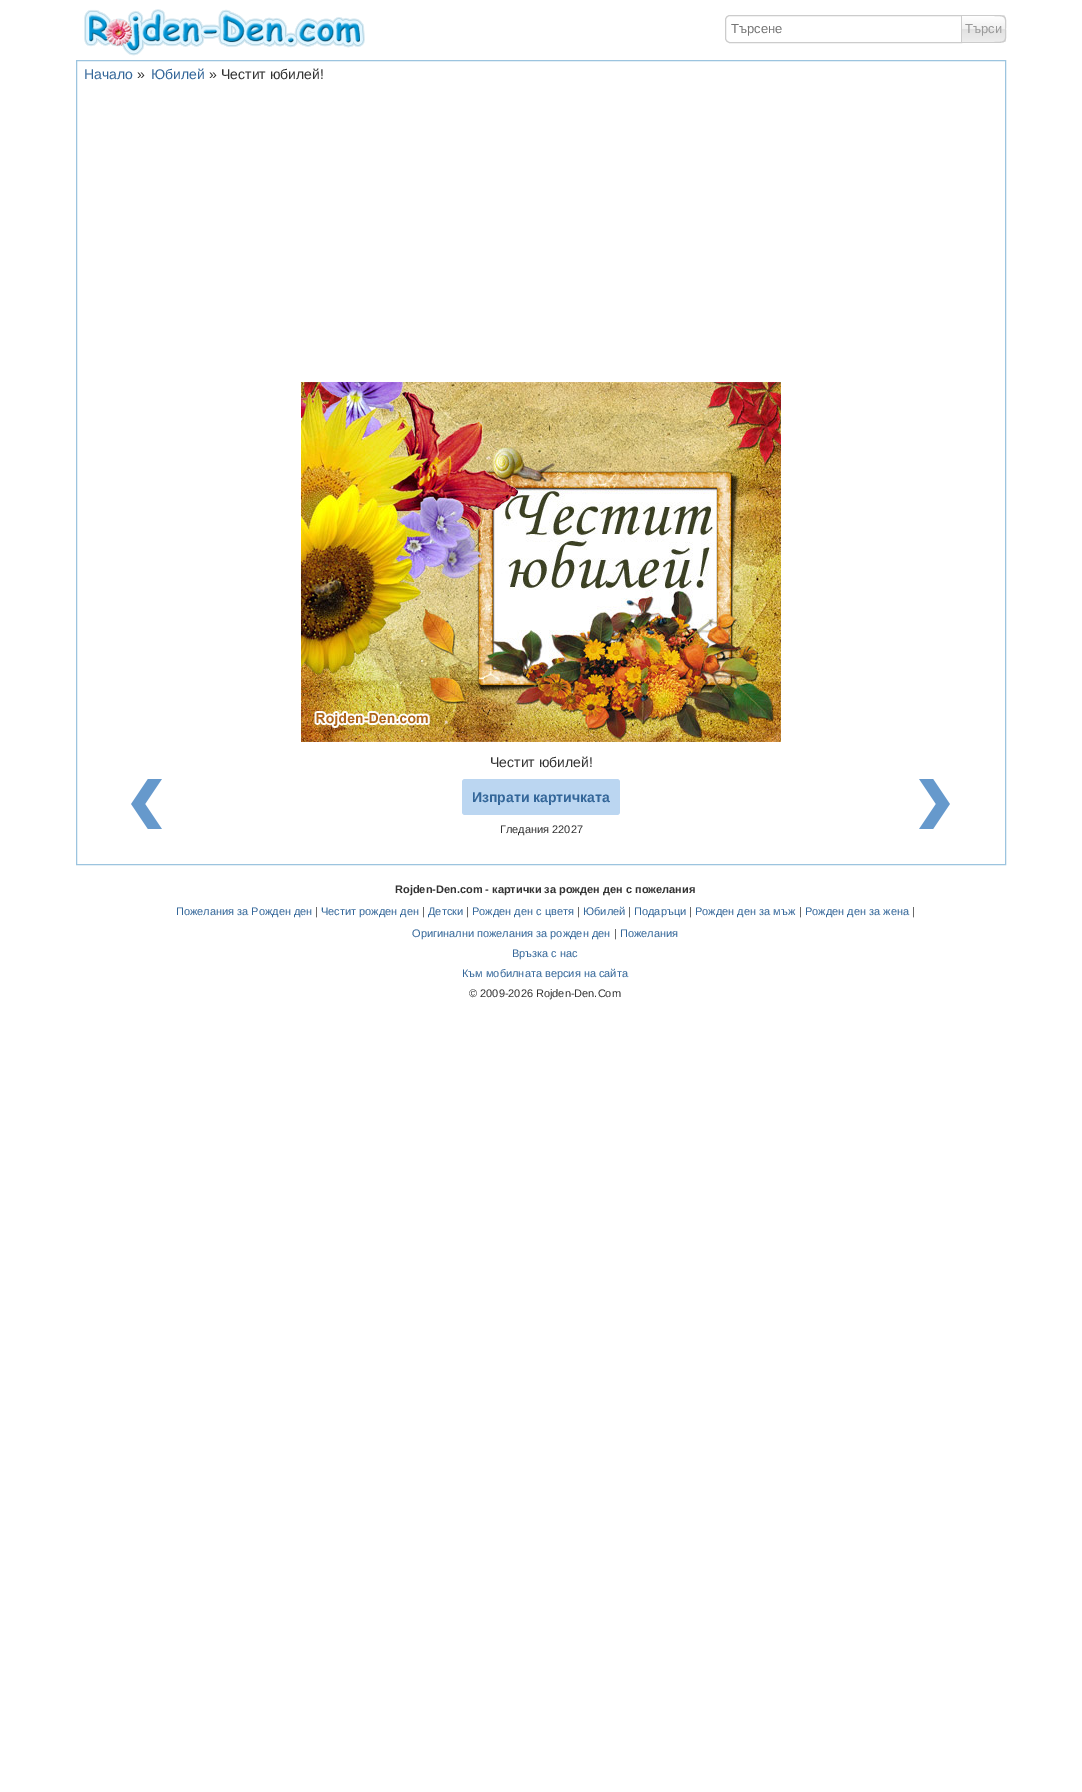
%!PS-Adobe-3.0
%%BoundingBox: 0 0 1082 1792
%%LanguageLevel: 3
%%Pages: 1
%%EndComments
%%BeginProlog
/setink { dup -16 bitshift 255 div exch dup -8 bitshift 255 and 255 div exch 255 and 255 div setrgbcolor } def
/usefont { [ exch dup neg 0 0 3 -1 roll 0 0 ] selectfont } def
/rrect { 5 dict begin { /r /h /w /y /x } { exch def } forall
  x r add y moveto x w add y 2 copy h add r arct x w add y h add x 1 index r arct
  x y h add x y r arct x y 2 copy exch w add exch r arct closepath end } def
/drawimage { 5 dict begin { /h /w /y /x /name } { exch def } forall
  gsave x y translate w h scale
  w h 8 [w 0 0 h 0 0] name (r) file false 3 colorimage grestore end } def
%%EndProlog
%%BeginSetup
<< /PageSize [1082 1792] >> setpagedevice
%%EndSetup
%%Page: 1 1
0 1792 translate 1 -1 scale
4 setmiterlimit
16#FFFFFF setink
0 0 1082 1792 rectfill
(img1.raw) 84 9 281 47 drawimage
16#CCCCCC setink
730 15.5 moveto 961.5 15.5 lineto 961.5 42.5 lineto 730 42.5 lineto 727.5 42.5 725.5 40.5 725.5 38 curveto 725.5 20 lineto 725.5 17.5 727.5 15.5 730 15.5 curveto closepath stroke
/LiberationSans-Regular 13 usefont
16#757575 setink
731 33 moveto (Търсене) show
gsave
962 15 moveto 1001 15 lineto 1004 15 1006 17 1006 20 curveto 1006 38 lineto 1006 41 1004 43 1001 43 curveto 962 43 lineto closepath clip newpath
gsave 996 15 moveto 1006 15 lineto 1006 16 lineto 996 16 lineto closepath clip newpath
<< /ShadingType 2 /ColorSpace /DeviceRGB /Coords [984 -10 984 16] /Extend [true true] /Function << /FunctionType 3 /Domain [0 1] /Functions [<< /FunctionType 2 /Domain [0 1] /C0 [1 1 1] /C1 [0.945 0.945 0.945] /N 1 >> << /FunctionType 2 /Domain [0 1] /C0 [0.945 0.945 0.945] /C1 [0.882 0.882 0.882] /N 1 >> << /FunctionType 2 /Domain [0 1] /C0 [0.882 0.882 0.882] /C1 [0.929 0.929 0.929] /N 1 >>] /Bounds [0.5 0.51] /Encode [0 1 0 1 0 1] >> >> shfill grestore
gsave 962 16 moveto 1006 16 lineto 1006 42 lineto 962 42 lineto closepath clip newpath
<< /ShadingType 2 /ColorSpace /DeviceRGB /Coords [984 16 984 42] /Extend [true true] /Function << /FunctionType 3 /Domain [0 1] /Functions [<< /FunctionType 2 /Domain [0 1] /C0 [1 1 1] /C1 [0.945 0.945 0.945] /N 1 >> << /FunctionType 2 /Domain [0 1] /C0 [0.945 0.945 0.945] /C1 [0.882 0.882 0.882] /N 1 >> << /FunctionType 2 /Domain [0 1] /C0 [0.882 0.882 0.882] /C1 [0.929 0.929 0.929] /N 1 >>] /Bounds [0.5 0.51] /Encode [0 1 0 1 0 1] >> >> shfill grestore
grestore
16#CCCCCC setink
962 15 moveto 994 15 lineto 1008 15 1006 16 1006 29 curveto 1006 42 1008 43 994 43 curveto 962 43 lineto closepath 962 16 moveto 994 16 lineto 1007 16 1005 17 1005 29 curveto 1005 41 1007 42 994 42 curveto 962 42 lineto closepath eofill
16#999999 setink
965 33 moveto (Търси) show
16#9CC4DF setink
76.5 60.5 929 804 rectstroke
/LiberationSans-Regular 14 usefont
16#336699 setink
84 79 moveto (Начало) show
16#333333 setink
137 79 moveto (») show
16#336699 setink
151 79 moveto (Юбилей) show
16#333333 setink
209 79 moveto (») show
221 79 moveto (Честит юбилей!) show
(img2.raw) 301 382 480 360 drawimage
490 767 moveto (Честит юбилей!) show
(img3.raw) 131 779 31 50 drawimage
16#BBD6F1 setink
462 779 158 36 3 rrect fill
/LiberationSans-Bold 14 usefont
16#336699 setink
472 802 moveto (Изпрати картичката) show
/LiberationSans-Regular 11 usefont
16#333333 setink
500 833 moveto (Гледания 22027) show
(img4.raw) 919 779 31 50 drawimage
/LiberationSans-Bold 11 usefont
395 893 moveto (Rojden-Den.com - картички за рожден ден с пожелания) show
/LiberationSans-Regular 11 usefont
16#336699 setink
176 915 moveto (Пожелания за Рожден ден) show
16#333333 setink
315 915 moveto (|) show
16#336699 setink
321 915 moveto (Честит рожден ден) show
16#333333 setink
422 915 moveto (|) show
16#336699 setink
428 915 moveto (Детски) show
16#333333 setink
466 915 moveto (|) show
16#336699 setink
472 915 moveto (Рожден ден с цветя) show
16#333333 setink
577 915 moveto (|) show
16#336699 setink
583 915 moveto (Юбилей) show
16#333333 setink
628 915 moveto (|) show
16#336699 setink
634 915 moveto (Подаръци) show
16#333333 setink
689 915 moveto (|) show
16#336699 setink
695 915 moveto (Рожден ден за мъж) show
16#333333 setink
799 915 moveto (|) show
16#336699 setink
805 915 moveto (Рожден ден за жена) show
16#333333 setink
912 915 moveto (|) show
16#336699 setink
412 937 moveto (Оригинални пожелания за рожден ден) show
16#333333 setink
614 937 moveto (|) show
16#336699 setink
[
    [(Пожелания) 620 937]
    [(Връзка с нас) 512 957]
    [(Към мобилната версия на сайта) 462 977]
] { aload pop moveto show } forall
16#333333 setink
469 997 moveto (© 2009-2026 Rojden-Den.Com) show
showpage
%%EOF
